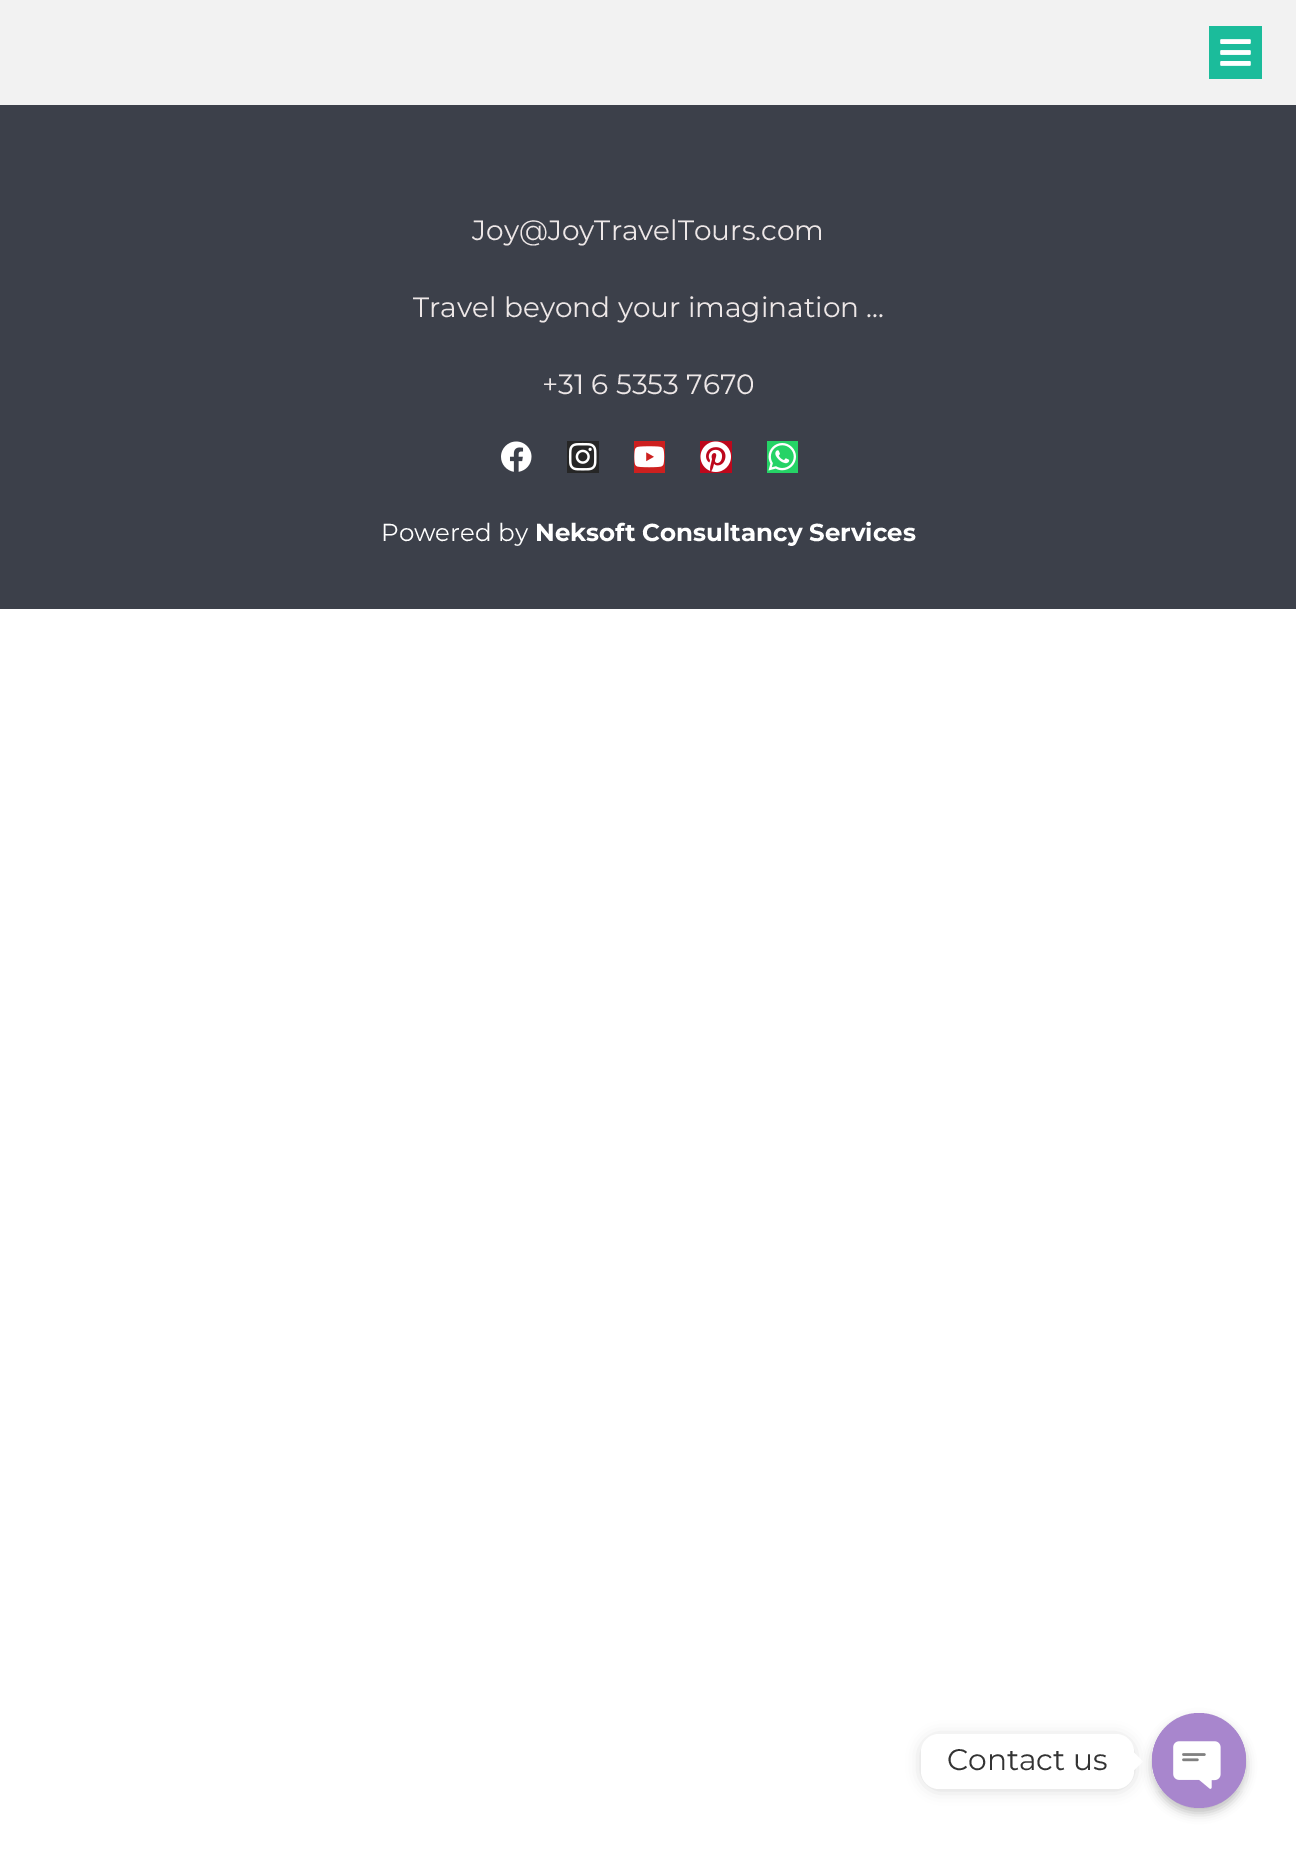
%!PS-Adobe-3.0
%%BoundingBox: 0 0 1296 1850
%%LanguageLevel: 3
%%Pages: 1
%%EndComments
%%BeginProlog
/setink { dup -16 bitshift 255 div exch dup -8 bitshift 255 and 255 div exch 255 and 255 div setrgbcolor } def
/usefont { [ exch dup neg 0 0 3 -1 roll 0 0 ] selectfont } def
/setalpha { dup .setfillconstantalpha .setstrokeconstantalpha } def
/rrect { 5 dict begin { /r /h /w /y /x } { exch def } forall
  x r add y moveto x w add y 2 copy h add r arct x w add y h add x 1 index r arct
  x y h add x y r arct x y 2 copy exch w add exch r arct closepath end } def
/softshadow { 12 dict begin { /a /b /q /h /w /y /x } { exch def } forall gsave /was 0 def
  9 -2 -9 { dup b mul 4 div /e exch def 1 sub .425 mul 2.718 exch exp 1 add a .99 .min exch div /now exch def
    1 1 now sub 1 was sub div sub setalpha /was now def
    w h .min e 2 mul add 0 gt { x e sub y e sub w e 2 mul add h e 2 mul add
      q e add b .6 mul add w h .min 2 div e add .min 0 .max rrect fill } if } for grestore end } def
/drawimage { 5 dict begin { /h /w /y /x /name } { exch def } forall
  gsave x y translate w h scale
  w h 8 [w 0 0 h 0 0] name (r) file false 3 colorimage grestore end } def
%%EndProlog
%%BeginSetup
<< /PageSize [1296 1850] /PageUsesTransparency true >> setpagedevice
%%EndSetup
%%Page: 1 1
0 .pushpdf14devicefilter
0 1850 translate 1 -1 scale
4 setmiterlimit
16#FFFFFF setink
0 0 1296 1850 rectfill
16#F2F2F2 setink
0 0 1296 105 rectfill
16#1BBC9B setink
1209 26 53 53 rectfill
(img1.raw) 1220 39 31 27 drawimage
16#3C404A setink
0 105 1296 504 rectfill
/Montserrat-Regular 28 usefont
16#EDE7E7 setink
[
    [(Joy@JoyTravelTours.com) 472 240]
    [(Travel beyond your imagination ...) 413 317]
    [(+31 6 5353 7670) 542 394]
] { aload pop moveto show } forall
(img2.raw) 501 441 31 31 drawimage
16#262626 setink
567 441 32 32 rectfill
(img3.raw) 568 442 29 29 drawimage
16#CD201F setink
634 441 31 32 rectfill
(img4.raw) 634 446 31 22 drawimage
16#BD081C setink
700 441 32 32 rectfill
(img5.raw) 700 441 31 31 drawimage
16#25D366 setink
767 441 31 32 rectfill
(img6.raw) 768 443 28 28 drawimage
/Montserrat-Regular 24.5 usefont
16#FFFFFF setink
381 541 moveto (Powered by) show
/Montserrat-Bold 24.5 usefont
535 541 moveto (Neksoft Consultancy Services) show
16#000000 setink
921 1736 213 54 18 7 0.15 softshadow
16#FFFFFF setink
921 1734 213 55 18 rrect fill
/Montserrat-Regular 29.75 usefont
16#333333 setink
947 1770 moveto (Contact us) show
16#FFFFFF setink
1134 1770 moveto 1134 1752.5 lineto 1143 1761.5 lineto closepath fill
16#000000 setink
1152 1719 94 94 47 5 0.25 softshadow
16#A886CD setink
1152 1713 94 95 47 rrect fill
(img7.raw) 1152 1730 94 61 drawimage
.poppdf14devicefilter showpage
%%EOF
